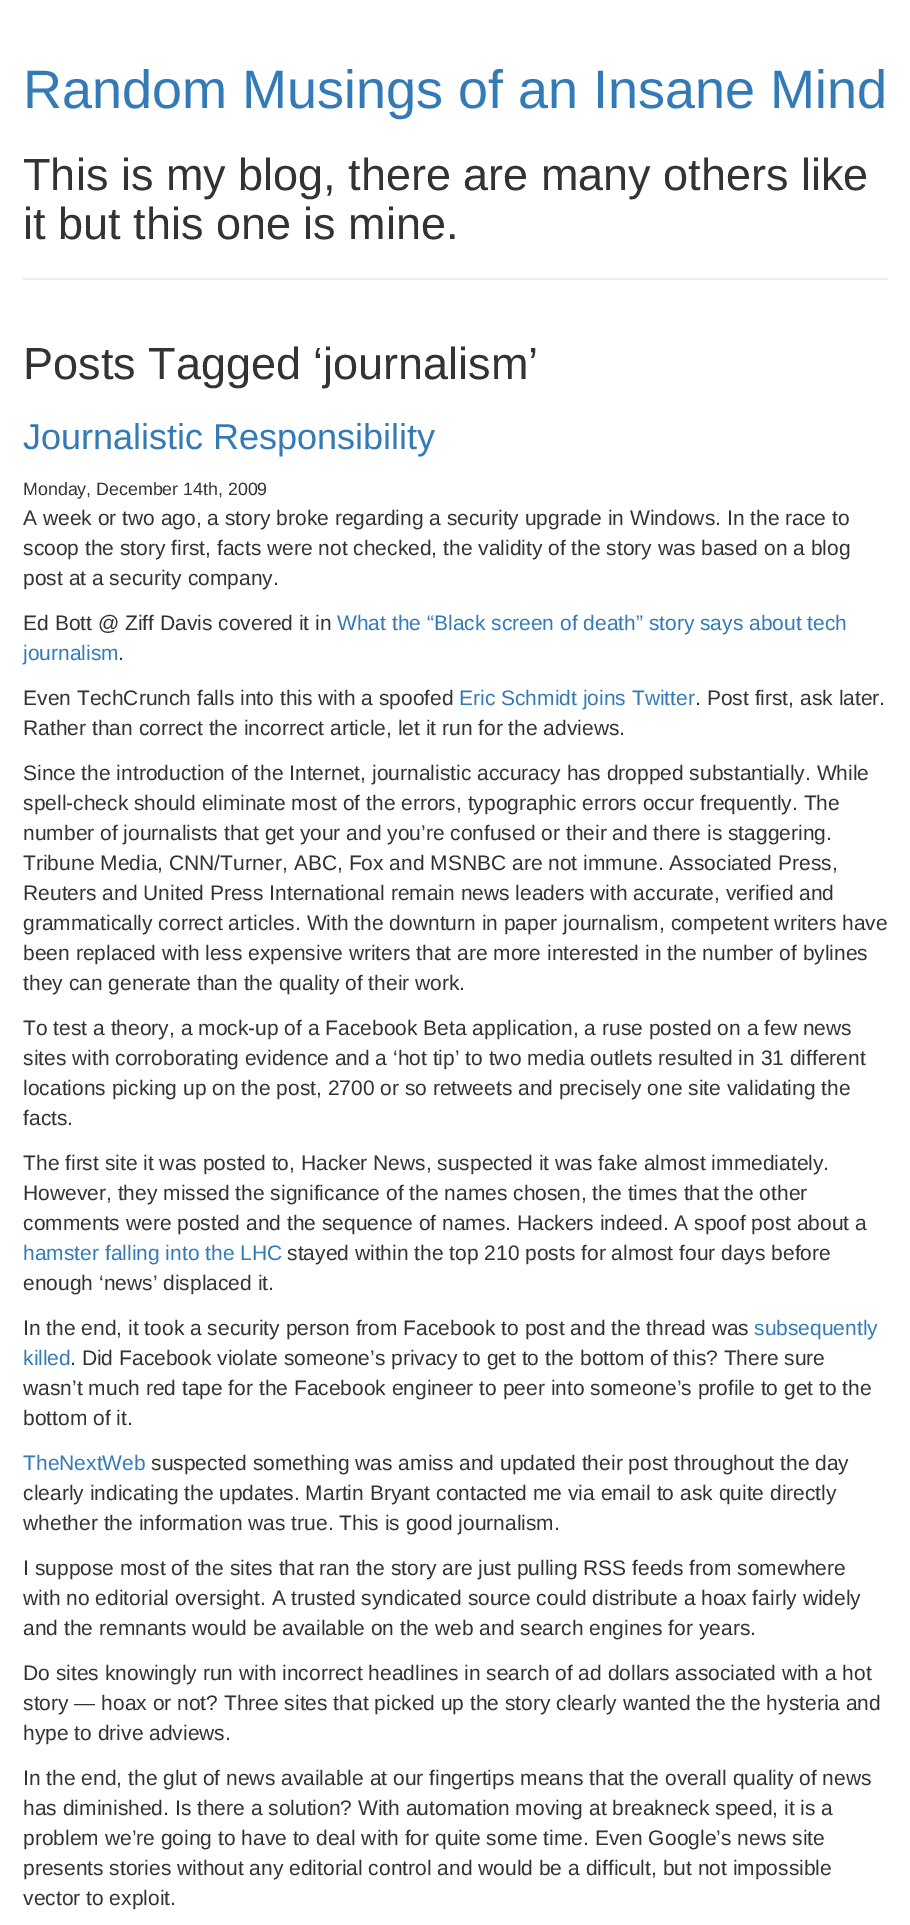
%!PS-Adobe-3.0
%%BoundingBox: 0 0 910 1925
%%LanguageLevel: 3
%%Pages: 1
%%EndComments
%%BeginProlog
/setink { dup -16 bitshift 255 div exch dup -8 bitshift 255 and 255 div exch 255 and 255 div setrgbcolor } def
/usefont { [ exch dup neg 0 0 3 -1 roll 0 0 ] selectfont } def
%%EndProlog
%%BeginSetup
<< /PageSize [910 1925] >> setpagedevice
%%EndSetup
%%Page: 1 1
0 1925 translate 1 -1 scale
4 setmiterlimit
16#FFFFFF setink
0 0 910 1925 rectfill
16#EEEEEE setink
23 278 865 2 rectfill
/LiberationSans-Regular 54 usefont
16#337AB7 setink
23 108 moveto (Random Musings of an Insane Mind) show
/LiberationSans-Regular 45 usefont
16#333333 setink
[
    [(This is my blog, there are many others like) 23 190]
    [(it but this one is mine.) 23 239]
    [(Posts Tagged ‘journalism’) 23 379]
] { aload pop moveto show } forall
/LiberationSans-Regular 36 usefont
16#337AB7 setink
23 449 moveto (Journalistic Responsibility) show
/LiberationSans-Regular 17.8 usefont
16#333333 setink
23 495 moveto (Monday, December 14th, 2009) show
/LiberationSans-Regular 21 usefont
[
    [(A week or two ago, a story broke regarding a security upgrade in Windows. In the race to) 23 525]
    [(scoop the story first, facts were not checked, the validity of the story was based on a blog) 23 555]
    [(post at a security company.) 23 585]
    [(Ed Bott @ Ziff Davis covered it in) 23 630]
] { aload pop moveto show } forall
16#337AB7 setink
337 630 moveto (What the “Black screen of death” story says about tech) show
23 660 moveto (journalism) show
16#333333 setink
118 660 moveto (.) show
23 705 moveto (Even TechCrunch falls into this with a spoofed) show
16#337AB7 setink
459 705 moveto (Eric Schmidt joins Twitter) show
16#333333 setink
[
    [(. Post first, ask later.) 695 705]
    [(Rather than correct the incorrect article, let it run for the adviews.) 23 735]
    [(Since the introduction of the Internet, journalistic accuracy has dropped substantially. While) 23 780]
    [(spell-check should eliminate most of the errors, typographic errors occur frequently. The) 23 810]
    [(number of journalists that get your and you’re confused or their and there is staggering.) 23 840]
    [(Tribune Media, CNN/Turner, ABC, Fox and MSNBC are not immune. Associated Press,) 23 870]
    [(Reuters and United Press International remain news leaders with accurate, verified and) 23 900]
    [(grammatically correct articles. With the downturn in paper journalism, competent writers have) 23 930]
    [(been replaced with less expensive writers that are more interested in the number of bylines) 23 960]
    [(they can generate than the quality of their work.) 23 990]
    [(To test a theory, a mock-up of a Facebook Beta application, a ruse posted on a few news) 23 1035]
    [(sites with corroborating evidence and a ‘hot tip’ to two media outlets resulted in 31 different) 23 1065]
    [(locations picking up on the post, 2700 or so retweets and precisely one site validating the) 23 1095]
    [(facts.) 23 1125]
    [(The first site it was posted to, Hacker News, suspected it was fake almost immediately.) 23 1170]
    [(However, they missed the significance of the names chosen, the times that the other) 23 1200]
    [(comments were posted and the sequence of names. Hackers indeed. A spoof post about a) 23 1230]
] { aload pop moveto show } forall
16#337AB7 setink
23 1260 moveto (hamster falling into the LHC) show
16#333333 setink
[
    [(stayed within the top 210 posts for almost four days before) 287 1260]
    [(enough ‘news’ displaced it.) 23 1290]
    [(In the end, it took a security person from Facebook to post and the thread was) 23 1335]
] { aload pop moveto show } forall
16#337AB7 setink
754 1335 moveto (subsequently) show
23 1365 moveto (killed) show
16#333333 setink
[
    [(. Did Facebook violate someone’s privacy to get to the bottom of this? There sure) 70 1365]
    [(wasn’t much red tape for the Facebook engineer to peer into someone’s profile to get to the) 23 1395]
    [(bottom of it.) 23 1425]
] { aload pop moveto show } forall
16#337AB7 setink
23 1470 moveto (TheNextWeb) show
16#333333 setink
[
    [(suspected something was amiss and updated their post throughout the day) 151 1470]
    [(clearly indicating the updates. Martin Bryant contacted me via email to ask quite directly) 23 1500]
    [(whether the information was true. This is good journalism.) 23 1530]
    [(I suppose most of the sites that ran the story are just pulling RSS feeds from somewhere) 23 1575]
    [(with no editorial oversight. A trusted syndicated source could distribute a hoax fairly widely) 23 1605]
    [(and the remnants would be available on the web and search engines for years.) 23 1635]
    [(Do sites knowingly run with incorrect headlines in search of ad dollars associated with a hot) 23 1680]
    [(story — hoax or not? Three sites that picked up the story clearly wanted the the hysteria and) 23 1710]
    [(hype to drive adviews.) 23 1740]
    [(In the end, the glut of news available at our fingertips means that the overall quality of news) 23 1785]
    [(has diminished. Is there a solution? With automation moving at breakneck speed, it is a) 23 1815]
    [(problem we’re going to have to deal with for quite some time. Even Google’s news site) 23 1845]
    [(presents stories without any editorial control and would be a difficult, but not impossible) 23 1875]
    [(vector to exploit.) 23 1905]
] { aload pop moveto show } forall
showpage
%%EOF
